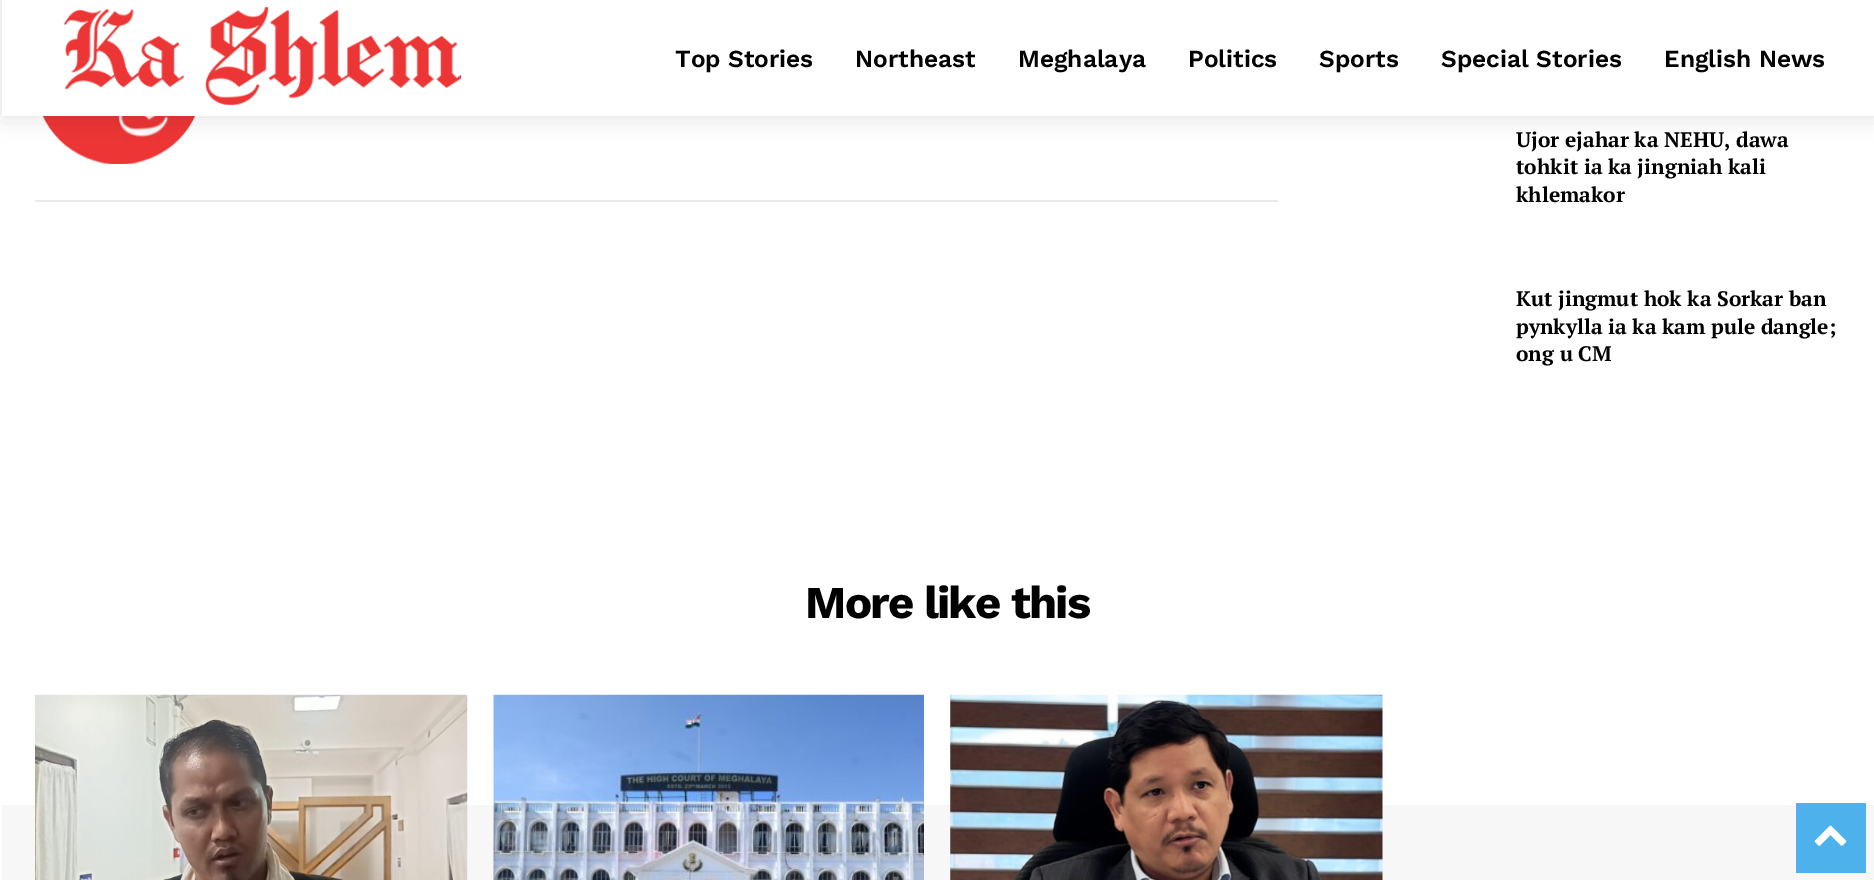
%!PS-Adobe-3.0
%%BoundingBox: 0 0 1874 880
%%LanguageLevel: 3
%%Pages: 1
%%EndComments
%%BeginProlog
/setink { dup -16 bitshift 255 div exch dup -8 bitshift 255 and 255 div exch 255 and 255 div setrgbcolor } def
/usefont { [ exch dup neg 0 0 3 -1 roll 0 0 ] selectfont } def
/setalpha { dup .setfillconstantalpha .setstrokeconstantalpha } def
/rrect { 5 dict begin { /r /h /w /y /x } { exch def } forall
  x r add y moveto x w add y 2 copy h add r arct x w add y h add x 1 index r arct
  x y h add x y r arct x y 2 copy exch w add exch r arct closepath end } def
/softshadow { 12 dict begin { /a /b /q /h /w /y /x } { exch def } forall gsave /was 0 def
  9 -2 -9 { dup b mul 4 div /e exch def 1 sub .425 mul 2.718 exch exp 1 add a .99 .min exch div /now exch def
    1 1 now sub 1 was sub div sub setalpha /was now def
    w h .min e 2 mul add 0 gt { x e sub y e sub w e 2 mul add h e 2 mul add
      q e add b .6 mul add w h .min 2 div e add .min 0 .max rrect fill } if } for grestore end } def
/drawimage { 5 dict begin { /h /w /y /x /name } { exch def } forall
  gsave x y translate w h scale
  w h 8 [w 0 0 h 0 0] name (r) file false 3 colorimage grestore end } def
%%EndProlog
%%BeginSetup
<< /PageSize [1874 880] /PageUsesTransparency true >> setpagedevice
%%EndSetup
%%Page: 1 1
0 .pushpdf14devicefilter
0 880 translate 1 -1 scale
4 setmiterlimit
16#FFFFFF setink
0 0 1874 880 rectfill
(img1.raw) 64 7 397 98 drawimage
(img2.raw) 42 116 154 48 drawimage
gsave
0 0 moveto 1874 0 lineto 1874 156 lineto 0 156 lineto closepath 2 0 moveto 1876 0 lineto 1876 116 lineto 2 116 lineto closepath eoclip newpath
16#000000 setink
2 0 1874 116 0 13 0.12 softshadow
grestore
/WorkSans-SemiBold 24.5 usefont
16#000000 setink
[
    [(Top Stories) 675 67]
    [(Northeast) 855 67]
    [(Meghalaya) 1018 67]
    [(Politics) 1188 67]
    [(Sports) 1319 67]
    [(Special Stories) 1441 67]
    [(English News) 1664 67]
] { aload pop moveto show } forall
16#EAEAEA setink
35 200 1243 2 rectfill
/PTSerif-Bold 21 usefont
16#000000 setink
[
    [(Ujor ejahar ka NEHU, dawa) 1516 147]
    [(tohkit ia ka jingniah kali) 1516 174]
    [(khlemakor) 1516 202]
    [(Kut jingmut hok ka Sorkar ban) 1516 306]
    [(pynkylla ia ka kam pule dangle;) 1516 334]
    [(ong u CM) 1516 361]
] { aload pop moveto show } forall
/WorkSans-Bold 45.5 usefont
805 618 moveto -1.75 0 (More like this) ashow
16#F7F7F7 setink
2 805 1872 75 rectfill
(img3.raw) 35 694 433 186 drawimage
(img4.raw) 493 694 431 186 drawimage
(img5.raw) 950 694 433 186 drawimage
16#4DB2EC setink
1796 803 70 70 rectfill
(img6.raw) 1814 825 33 21 drawimage
.poppdf14devicefilter showpage
%%EOF
